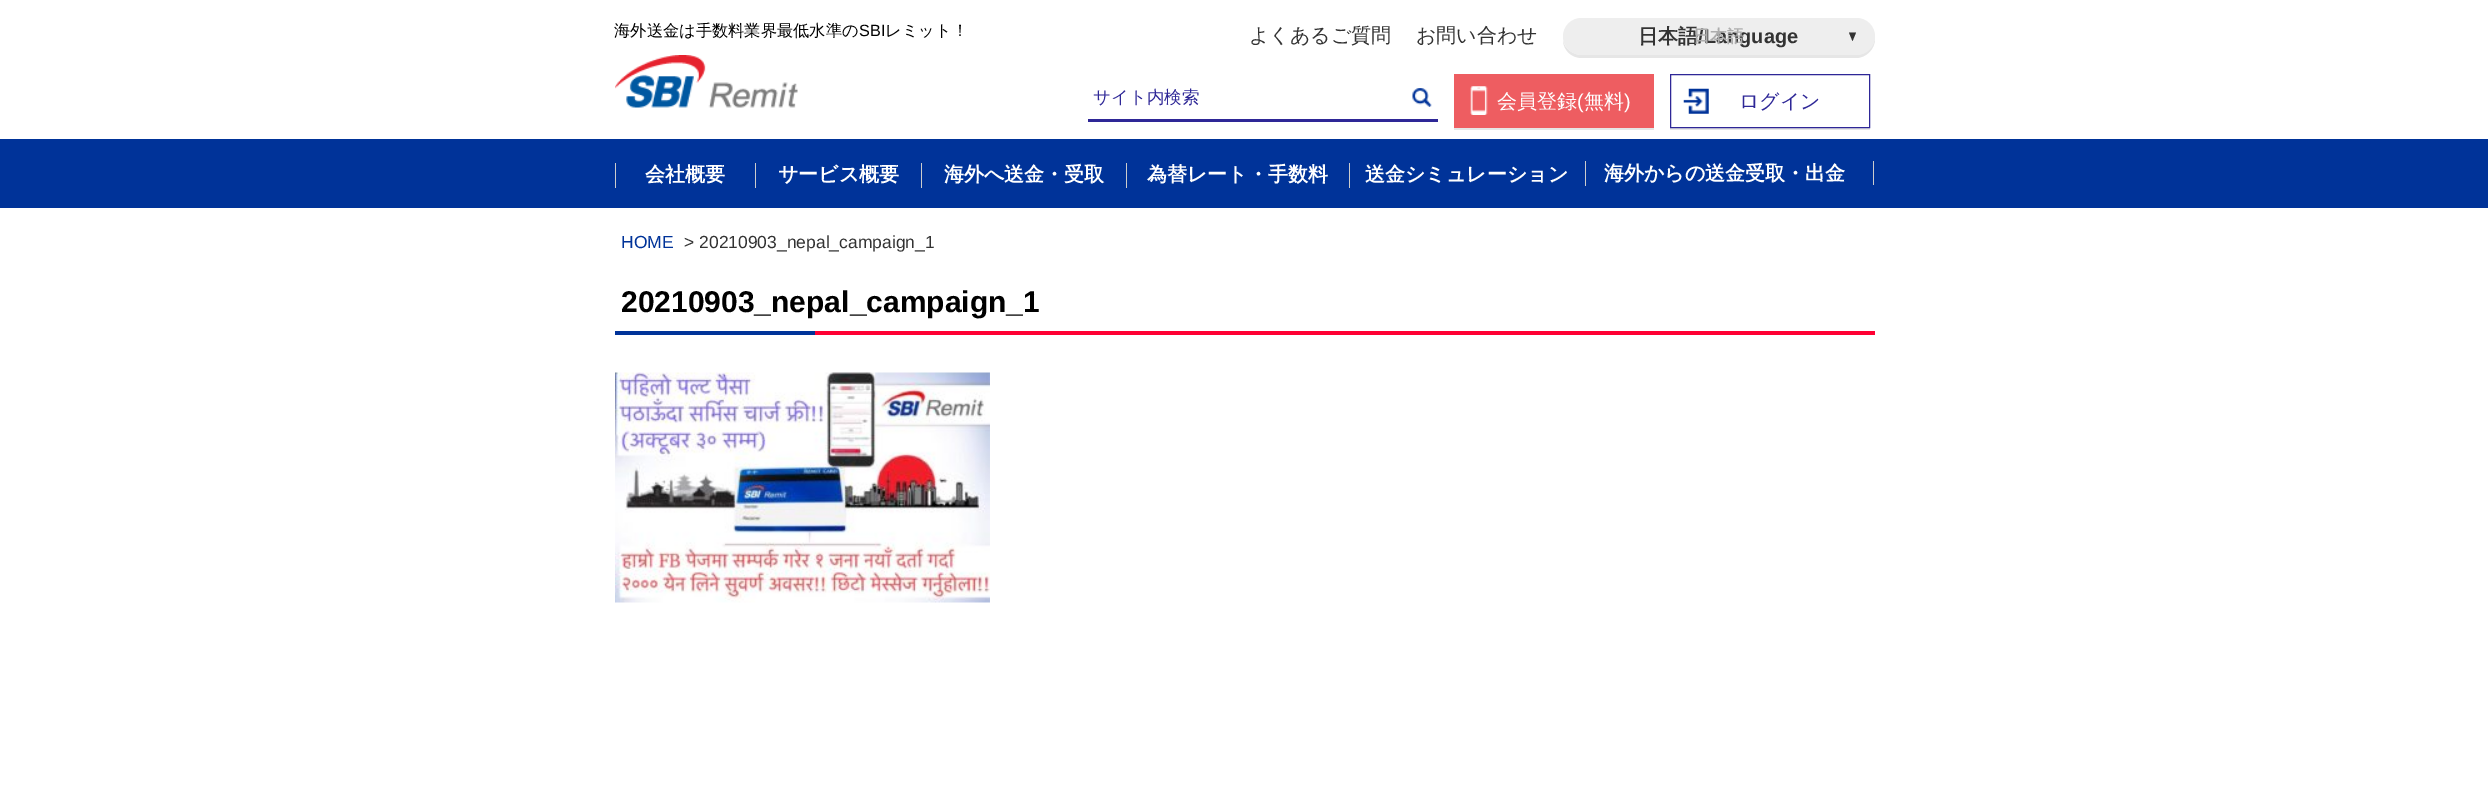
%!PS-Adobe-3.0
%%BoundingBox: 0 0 2488 806
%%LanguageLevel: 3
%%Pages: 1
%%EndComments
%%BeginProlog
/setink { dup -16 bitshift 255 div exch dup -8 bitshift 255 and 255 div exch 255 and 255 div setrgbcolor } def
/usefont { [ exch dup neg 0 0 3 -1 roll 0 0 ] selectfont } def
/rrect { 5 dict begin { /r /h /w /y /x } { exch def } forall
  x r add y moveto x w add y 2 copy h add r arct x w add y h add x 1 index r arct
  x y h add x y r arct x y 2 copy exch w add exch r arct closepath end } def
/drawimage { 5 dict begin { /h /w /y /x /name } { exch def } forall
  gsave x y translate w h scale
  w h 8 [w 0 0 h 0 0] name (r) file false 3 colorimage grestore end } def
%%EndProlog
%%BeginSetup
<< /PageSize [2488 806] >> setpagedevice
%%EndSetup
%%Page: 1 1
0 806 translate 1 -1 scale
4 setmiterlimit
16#FFFFFF setink
0 0 2488 806 rectfill
/WenQuanYiZenHei-Medium 16.25 usefont
16#000000 setink
614 36 moveto (海外送金は手数料業界最低水準の) show
/LiberationSans-Regular 16.25 usefont
859 36 moveto (SBI) show
/WenQuanYiZenHei-Medium 16.25 usefont
885 36 moveto (レミット！) show
/WenQuanYiZenHei-Medium 20 usefont
16#333333 setink
1249 42 moveto (よくあるご質問) show
1416 42 moveto (お問い合わせ) show
16#E6E6E6 setink
1563 41 moveto 1564 51 1572 58 1582 58 curveto 1856 58 lineto 1866 58 1875 49 1875 39 curveto 1875 38 lineto 1874 47 1866 55 1856 55 curveto 1581 55 lineto 1573 55 1565 49 1563 41 curveto closepath fill
16#EEEEEE setink
1563 18 312 37 18.5 rrect fill
/WenQuanYiZenHei-Bold 20 usefont
16#333333 setink
1638 43 moveto (日本語) show
/LiberationSans-Bold 20 usefont
1698 43 moveto (/Language) show
/WenQuanYiZenHei-Bold 17 usefont
16#ADADAD setink
1693 42 moveto (日本語) show
16#333333 setink
1849 32.5 moveto 1856 32.5 lineto 1852.5 41 lineto closepath fill
(img1.raw) 615 55 183 53 drawimage
16#2E2797 setink
1088 119 350 3 rectfill
/WenQuanYiZenHei-Medium 17.5 usefont
1093 103 moveto (サイト内検索) show
(img2.raw) 1412 88 20 19 drawimage
16#E6E6E6 setink
1454 128 moveto 1454 130 lineto 1654 130 lineto 1654 76 lineto 1654 128 lineto closepath fill
16#EE5D61 setink
1454 74 200 54 rectfill
(img3.raw) 1470 86 18 29 drawimage
/WenQuanYiZenHei-Medium 20 usefont
16#FFFFFF setink
1497 108 moveto (会員登録) show
/LiberationSans-Regular 20 usefont
1577 108 moveto (\() show
/WenQuanYiZenHei-Medium 20 usefont
1584 108 moveto (無料) show
/LiberationSans-Regular 20 usefont
1624 108 moveto (\)) show
16#E6E6E6 setink
1670 128 200 2 rectfill
(img4.raw) 1683 88 26 26 drawimage
16#2E2797 setink
1670.5 74.5 199 53 rectstroke
/WenQuanYiZenHei-Medium 20 usefont
1739 108 moveto (ログイン) show
16#003399 setink
0 139 2488 69 rectfill
16#CCCCCC setink
615 163 1 25 rectfill
/WenQuanYiZenHei-Bold 20 usefont
16#FFFFFF setink
645 181 moveto (会社概要) show
16#CCCCCC setink
755 163 1 25 rectfill
16#FFFFFF setink
778 181 moveto (サービス概要) show
16#CCCCCC setink
921 163 1 25 rectfill
16#FFFFFF setink
944 181 moveto (海外へ送金・受取) show
16#CCCCCC setink
1126 163 1 25 rectfill
16#FFFFFF setink
1147 181 moveto (為替レート・手数料) show
16#CCCCCC setink
1349 163 1 25 rectfill
16#FFFFFF setink
1365 181 moveto (送金シミュレーション) show
16#CCCCCC setink
1585 161 1 25 rectfill
1873 161 1 24 rectfill
16#FFFFFF setink
1604 180 moveto (海外からの送金受取・出金) show
/LiberationSans-Regular 17.5 usefont
16#003399 setink
621 248 moveto (HOME) show
16#333333 setink
684 248 moveto (> 20210903_nepal_campaign_1) show
/LiberationSans-Bold 30 usefont
16#000000 setink
621 312 moveto (20210903_nepal_campaign_1) show
16#003399 setink
615 331 200 4 rectfill
16#FF0033 setink
815 331 1060 4 rectfill
(img5.raw) 615 372 375 231 drawimage
showpage
%%EOF
